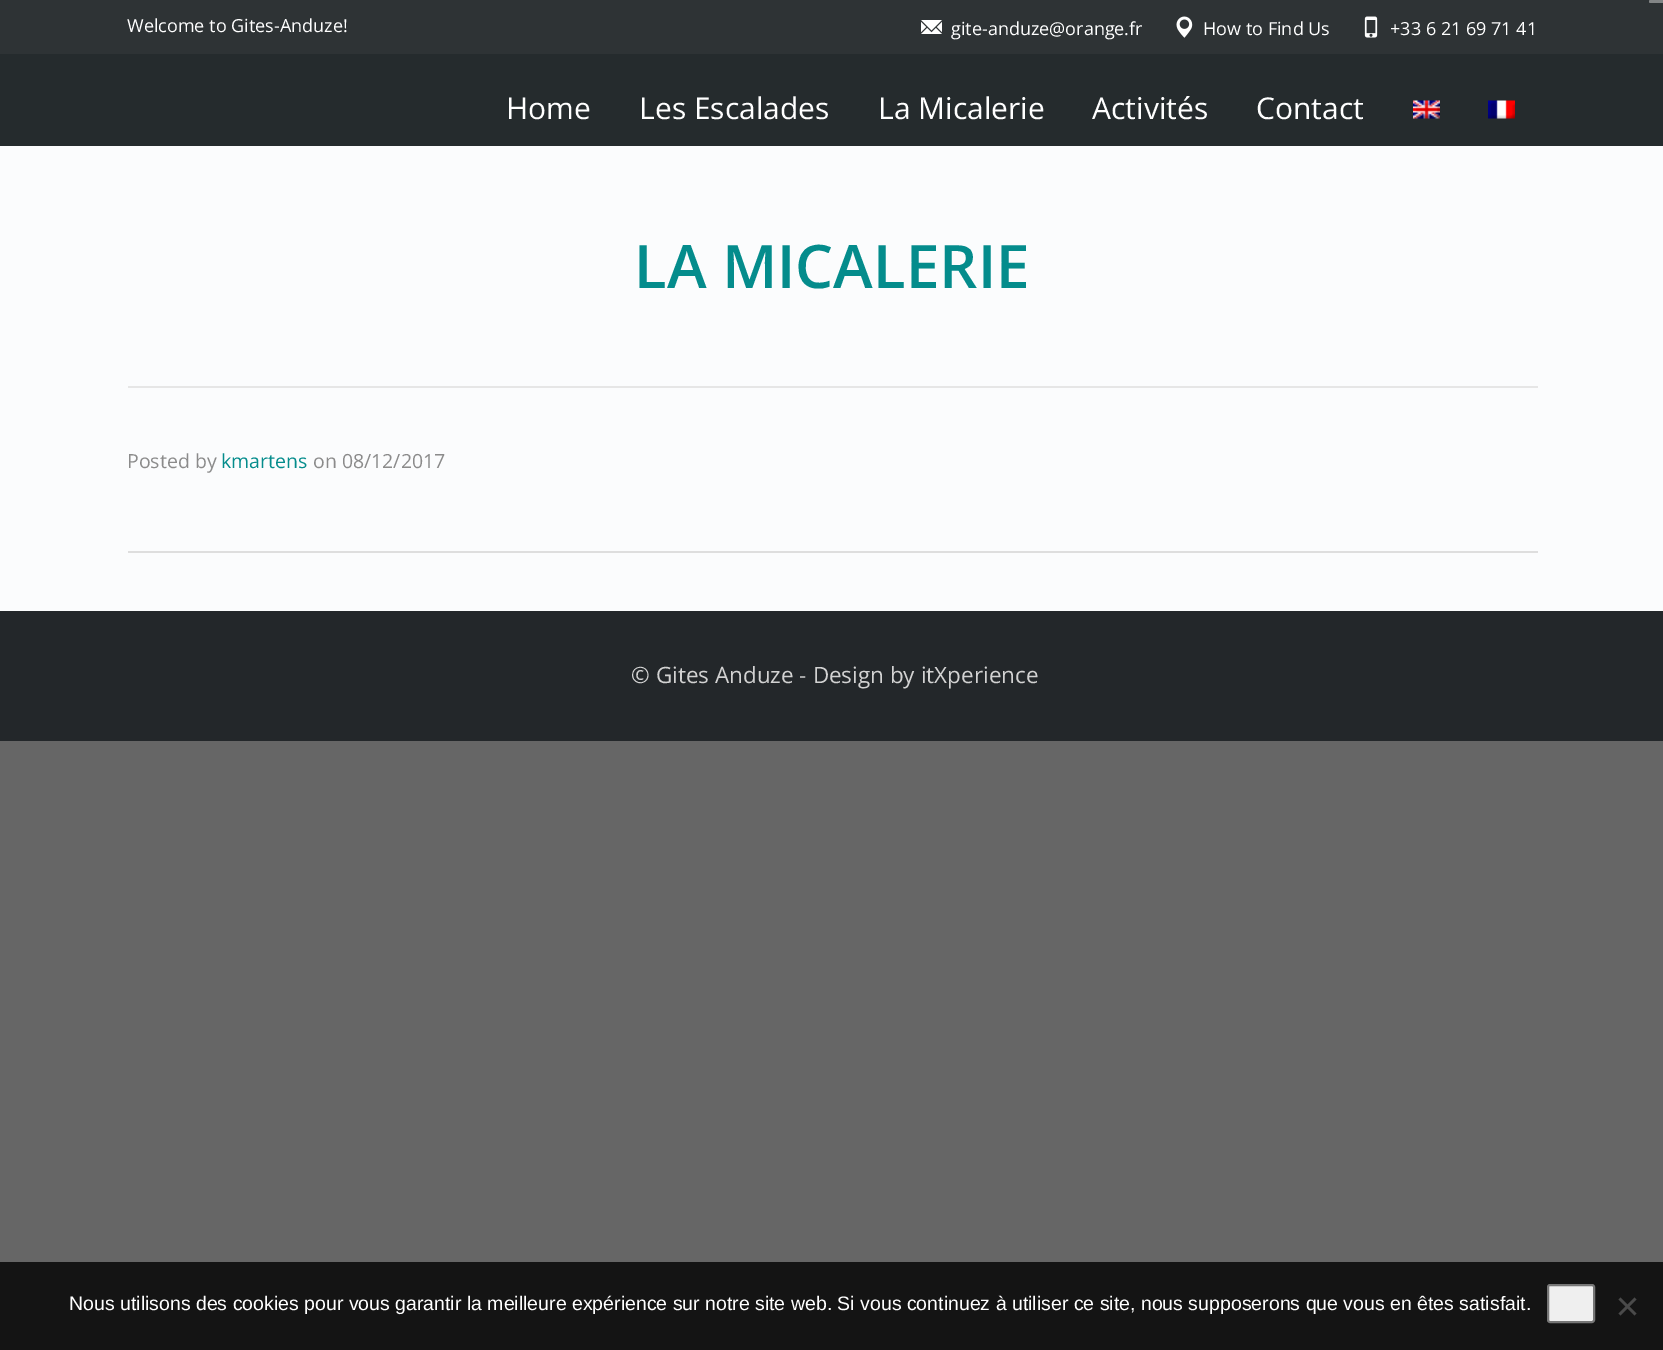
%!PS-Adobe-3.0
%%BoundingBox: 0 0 1663 1350
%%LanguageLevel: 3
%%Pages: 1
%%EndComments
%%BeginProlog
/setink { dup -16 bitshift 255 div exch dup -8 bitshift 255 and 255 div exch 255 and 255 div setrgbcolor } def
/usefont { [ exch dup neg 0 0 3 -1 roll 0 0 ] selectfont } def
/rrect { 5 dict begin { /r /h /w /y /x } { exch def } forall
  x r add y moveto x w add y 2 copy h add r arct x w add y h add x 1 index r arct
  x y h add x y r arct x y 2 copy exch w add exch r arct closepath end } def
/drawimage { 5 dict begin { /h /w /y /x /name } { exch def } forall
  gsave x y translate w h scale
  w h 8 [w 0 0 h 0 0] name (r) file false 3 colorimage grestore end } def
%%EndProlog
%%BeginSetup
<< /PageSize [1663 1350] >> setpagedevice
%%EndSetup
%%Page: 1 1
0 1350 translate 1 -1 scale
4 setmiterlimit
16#666666 setink
0 0 1663 1350 rectfill
16#2E3335 setink
0 0 1663 54 rectfill
16#828586 setink
1649 0 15 3 1.5 rrect fill
16#252B2D setink
0 54 1663 92 rectfill
/OpenSans-Regular 18 usefont
16#FFFFFF setink
127 32 moveto (Welcome to Gites-Anduze!) show
(img1.raw) 921 20 21 14 drawimage
951 35 moveto (gite-anduze@orange.fr) show
(img2.raw) 1176 16 17 22 drawimage
1203 35 moveto (How to Find Us) show
(img3.raw) 1364 16 14 22 drawimage
1390 35 moveto (+33 6 21 69 71 41) show
/OpenSans-Regular 30 usefont
[
    [(Home) 506 119]
    [(Les Escalades) 639 119]
    [(La Micalerie) 878 119]
    [(Activités) 1092 119]
    [(Contact) 1256 119]
] { aload pop moveto show } forall
(img4.raw) 1413 100 27 19 drawimage
(img5.raw) 1488 100 27 19 drawimage
16#FBFCFD setink
0 146 1663 465 rectfill
16#E6E6E6 setink
128 386 1410 2 rectfill
/OpenSans-SemiBold 60 usefont
16#048C8C setink
634 288 moveto (LA MICALERIE) show
16#DEDEDE setink
128 551 1410 2 rectfill
/OpenSans-Regular 19.5 usefont
16#8B8B8B setink
127 468 moveto (Posted by) show
16#048C8C setink
221 468 moveto (kmartens) show
16#8B8B8B setink
313 468 moveto (on 08/12/2017) show
16#23272A setink
0 611 1663 130 rectfill
/OpenSans-Regular 22.5 usefont
16#D2D2D2 setink
631 683 moveto (© Gites Anduze - Design by itXperience) show
16#141414 setink
0 1262 1663 88 rectfill
/LiberationSans-Regular 19.5 usefont
16#FFFFFF setink
69 1310 moveto (Nous utilisons des cookies pour vous garantir la meilleure expérience sur notre site web. Si vous continuez à utiliser ce site, nous supposerons que vous en êtes satisfait.) show
16#EFEFEF setink
1548 1285 46 37 2 rrect gsave fill grestore
16#767676 setink
2 setlinewidth
stroke
16#4A4A4A setink
1634.5 1297.5 moveto 1636.5 1299.5 lineto 1620.5 1315.5 lineto 1618.5 1313.5 lineto closepath fill
1618.5 1299.5 moveto 1620.5 1297.5 lineto 1636.5 1313.5 lineto 1634.5 1315.5 lineto closepath fill
showpage
%%EOF
